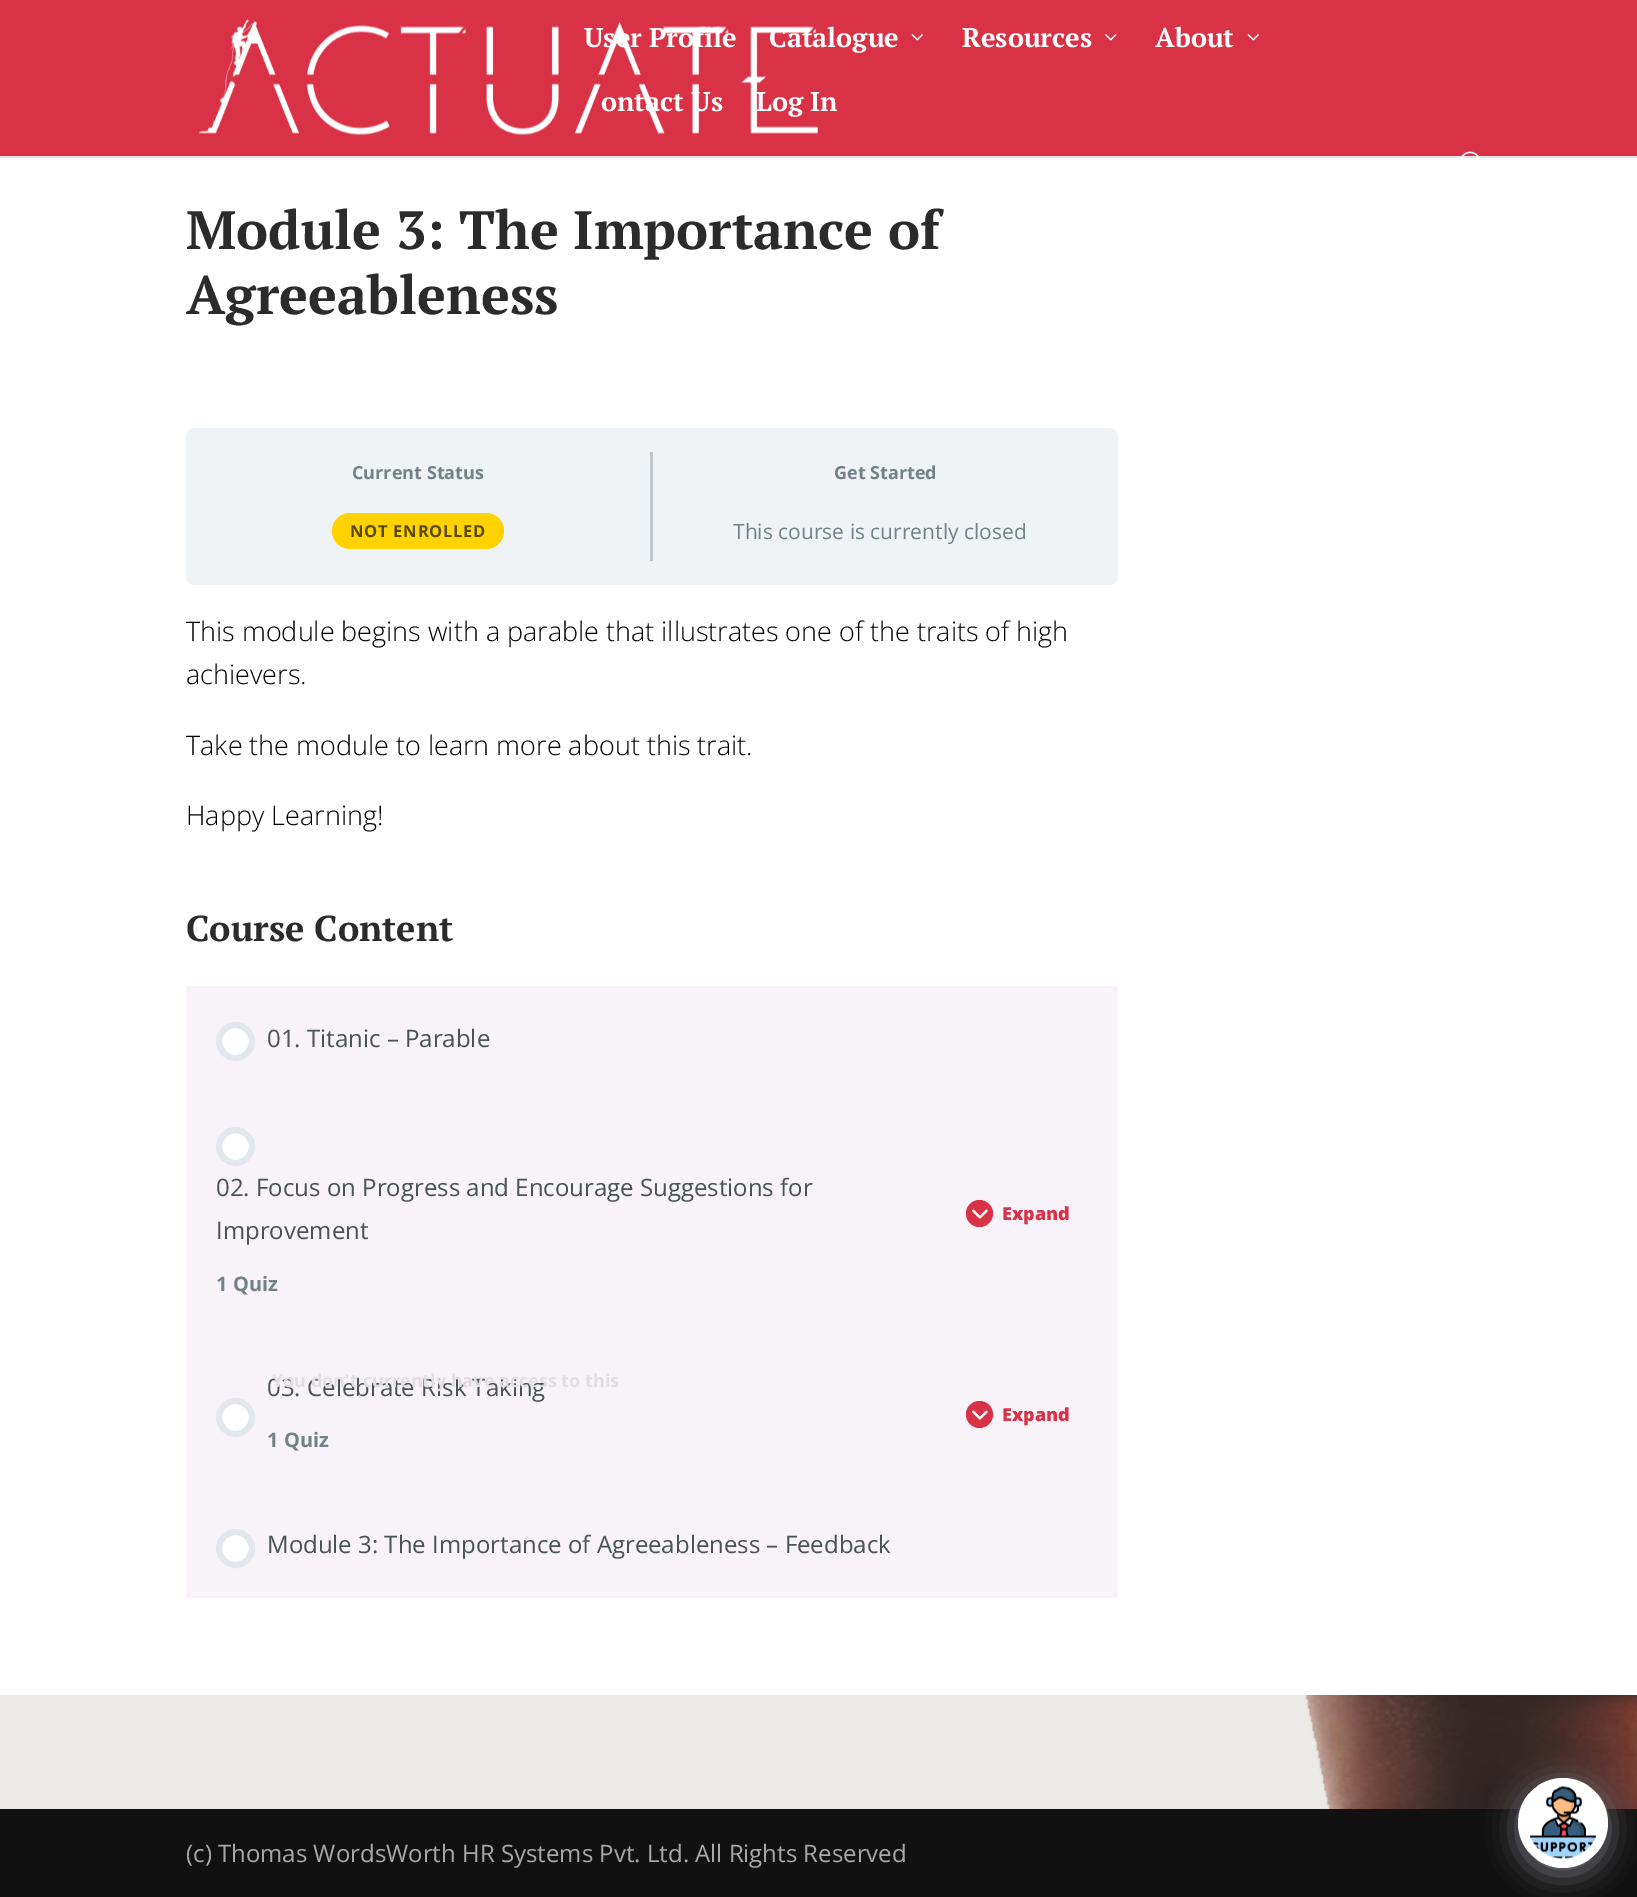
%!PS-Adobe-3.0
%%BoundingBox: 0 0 1637 1897
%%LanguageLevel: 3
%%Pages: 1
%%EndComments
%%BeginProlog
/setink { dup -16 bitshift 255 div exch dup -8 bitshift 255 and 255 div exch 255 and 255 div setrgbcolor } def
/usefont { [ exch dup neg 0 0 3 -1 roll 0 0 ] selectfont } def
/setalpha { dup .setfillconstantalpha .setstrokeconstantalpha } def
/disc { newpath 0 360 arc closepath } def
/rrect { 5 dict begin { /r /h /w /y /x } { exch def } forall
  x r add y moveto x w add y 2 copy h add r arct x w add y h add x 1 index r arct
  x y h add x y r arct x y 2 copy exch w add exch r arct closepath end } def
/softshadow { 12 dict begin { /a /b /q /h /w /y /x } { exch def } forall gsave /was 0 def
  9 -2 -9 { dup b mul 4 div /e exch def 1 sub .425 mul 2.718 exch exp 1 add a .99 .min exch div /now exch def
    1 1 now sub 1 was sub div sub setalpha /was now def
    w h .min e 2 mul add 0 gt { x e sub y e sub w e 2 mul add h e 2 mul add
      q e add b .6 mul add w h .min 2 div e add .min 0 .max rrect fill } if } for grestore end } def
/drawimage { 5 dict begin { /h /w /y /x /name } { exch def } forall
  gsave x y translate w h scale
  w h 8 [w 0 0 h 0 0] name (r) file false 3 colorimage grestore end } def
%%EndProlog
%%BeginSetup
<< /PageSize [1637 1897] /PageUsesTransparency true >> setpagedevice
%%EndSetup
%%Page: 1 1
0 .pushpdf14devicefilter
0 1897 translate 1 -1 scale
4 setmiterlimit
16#EBEAE6 setink
0 0 1637 1897 rectfill
16#E6E6E6 setink
0 156 1637 2 rectfill
16#D93146 setink
0 0 1637 156 rectfill
(img1.raw) 199 19 619 117 drawimage
/PTSerif-Bold 27 usefont
16#FFFFFF setink
584 47 moveto (User Profile) show
769 47 moveto (Catalogue) show
(img2.raw) 911 34 12 7 drawimage
962 47 moveto (Resources) show
(img3.raw) 1105 34 12 7 drawimage
1155 47 moveto (About) show
(img2.raw) 1247 34 12 7 drawimage
601 111 moveto (ontact Us) show
756 111 moveto (Log In) show
(img4.raw) 1460 151 20 7 drawimage
(img5.raw) 1304 1695 333 114 drawimage
0 158 1637 1537 rectfill
/PTSerif-Bold 54 usefont
16#2B2B2B setink
186 249 moveto (Module 3: The Importance of) show
186 314 moveto (Agreeableness) show
16#F0F3F6 setink
186 428 932 157 9 rrect fill
16#BEC5CB setink
650 452 3 109 rectfill
/OpenSans-Bold 18 usefont
16#728188 setink
352 479 moveto (Current Status) show
16#FFD200 setink
332 513 172 36 18 rrect fill
/OpenSans-Bold 16.5 usefont
16#594A00 setink
350 537 moveto 0.75 0 (NOT ENROLLED) ashow
/OpenSans-Bold 18 usefont
16#728188 setink
834 479 moveto (Get Started) show
/OpenSans-Regular 21 usefont
733 539 moveto (This course is currently closed) show
/OpenSans-Light 27 usefont
16#000000 setink
[
    [(This module begins with a parable that illustrates one of the traits of high) 186 641]
    [(achievers.) 186 684]
    [(Take the module to learn more about this trait.) 186 755]
    [(Happy Learning!) 186 825]
] { aload pop moveto show } forall
/PTSerif-Bold 36 usefont
16#2B2B2B setink
186 941 moveto (Course Content) show
16#F7F3F9 setink
186 986 932 105 rectfill
16#FFFFFF setink
235.5 1041.5 16.5 disc gsave fill grestore
16#E2E7ED setink
6 setlinewidth
stroke
/OpenSans-Regular 24 usefont
16#495255 setink
267 1047 moveto (01. Titanic – Parable) show
16#F8F3F9 setink
186 1091 932 244 rectfill
16#FFFFFF setink
235.5 1146.5 16.5 disc gsave fill grestore
16#E2E7ED setink
stroke
16#495255 setink
216 1196 moveto (02. Focus on Progress and Encourage Suggestions for) show
216 1239 moveto (Improvement) show
/OpenSans-Bold 20 usefont
16#728188 setink
216 1291 moveto (1 Quiz) show
16#D93146 setink
979.5 1213.5 13.5 disc fill
(img6.raw) 972 1209 16 10 drawimage
/OpenSans-ExtraBold 18 usefont
1002 1220 moveto (Expand) show
16#F7F3F9 setink
186 1335 932 263 rectfill
16#FFFFFF setink
235.5 1417.5 16.5 disc gsave fill grestore
16#E2E7ED setink
stroke
/OpenSans-Regular 24 usefont
16#495255 setink
267 1396 moveto (03. Celebrate Risk Taking) show
/OpenSans-Bold 20 usefont
16#728188 setink
267 1447 moveto (1 Quiz) show
16#D93146 setink
979.5 1414.5 13.5 disc fill
(img6.raw) 972 1410 16 10 drawimage
/OpenSans-ExtraBold 18 usefont
1002 1421 moveto (Expand) show
16#FFFFFF setink
235.5 1548.5 16.5 disc gsave fill grestore
16#E2E7ED setink
stroke
/OpenSans-Regular 24 usefont
16#495255 setink
267 1553 moveto (Module 3: The Importance of Agreeableness – Feedback) show
16#111111 setink
0 1809 1637 88 rectfill
16#A8A8A8 setink
186 1862 moveto (\(c\) Thomas WordsWorth HR Systems Pvt. Ltd. All Rights Reserved) show
/OpenSans-Bold 18 usefont
16#E0DEE4 setink
272 1387 moveto (You don't currently have access to this) show
16#767580 setink
1518 1784 90 90 45 15 1 softshadow
16#FFFFFF setink
1563 1823 45 disc fill
(img7.raw) 1529 1786 68 73 drawimage
.poppdf14devicefilter showpage
%%EOF
